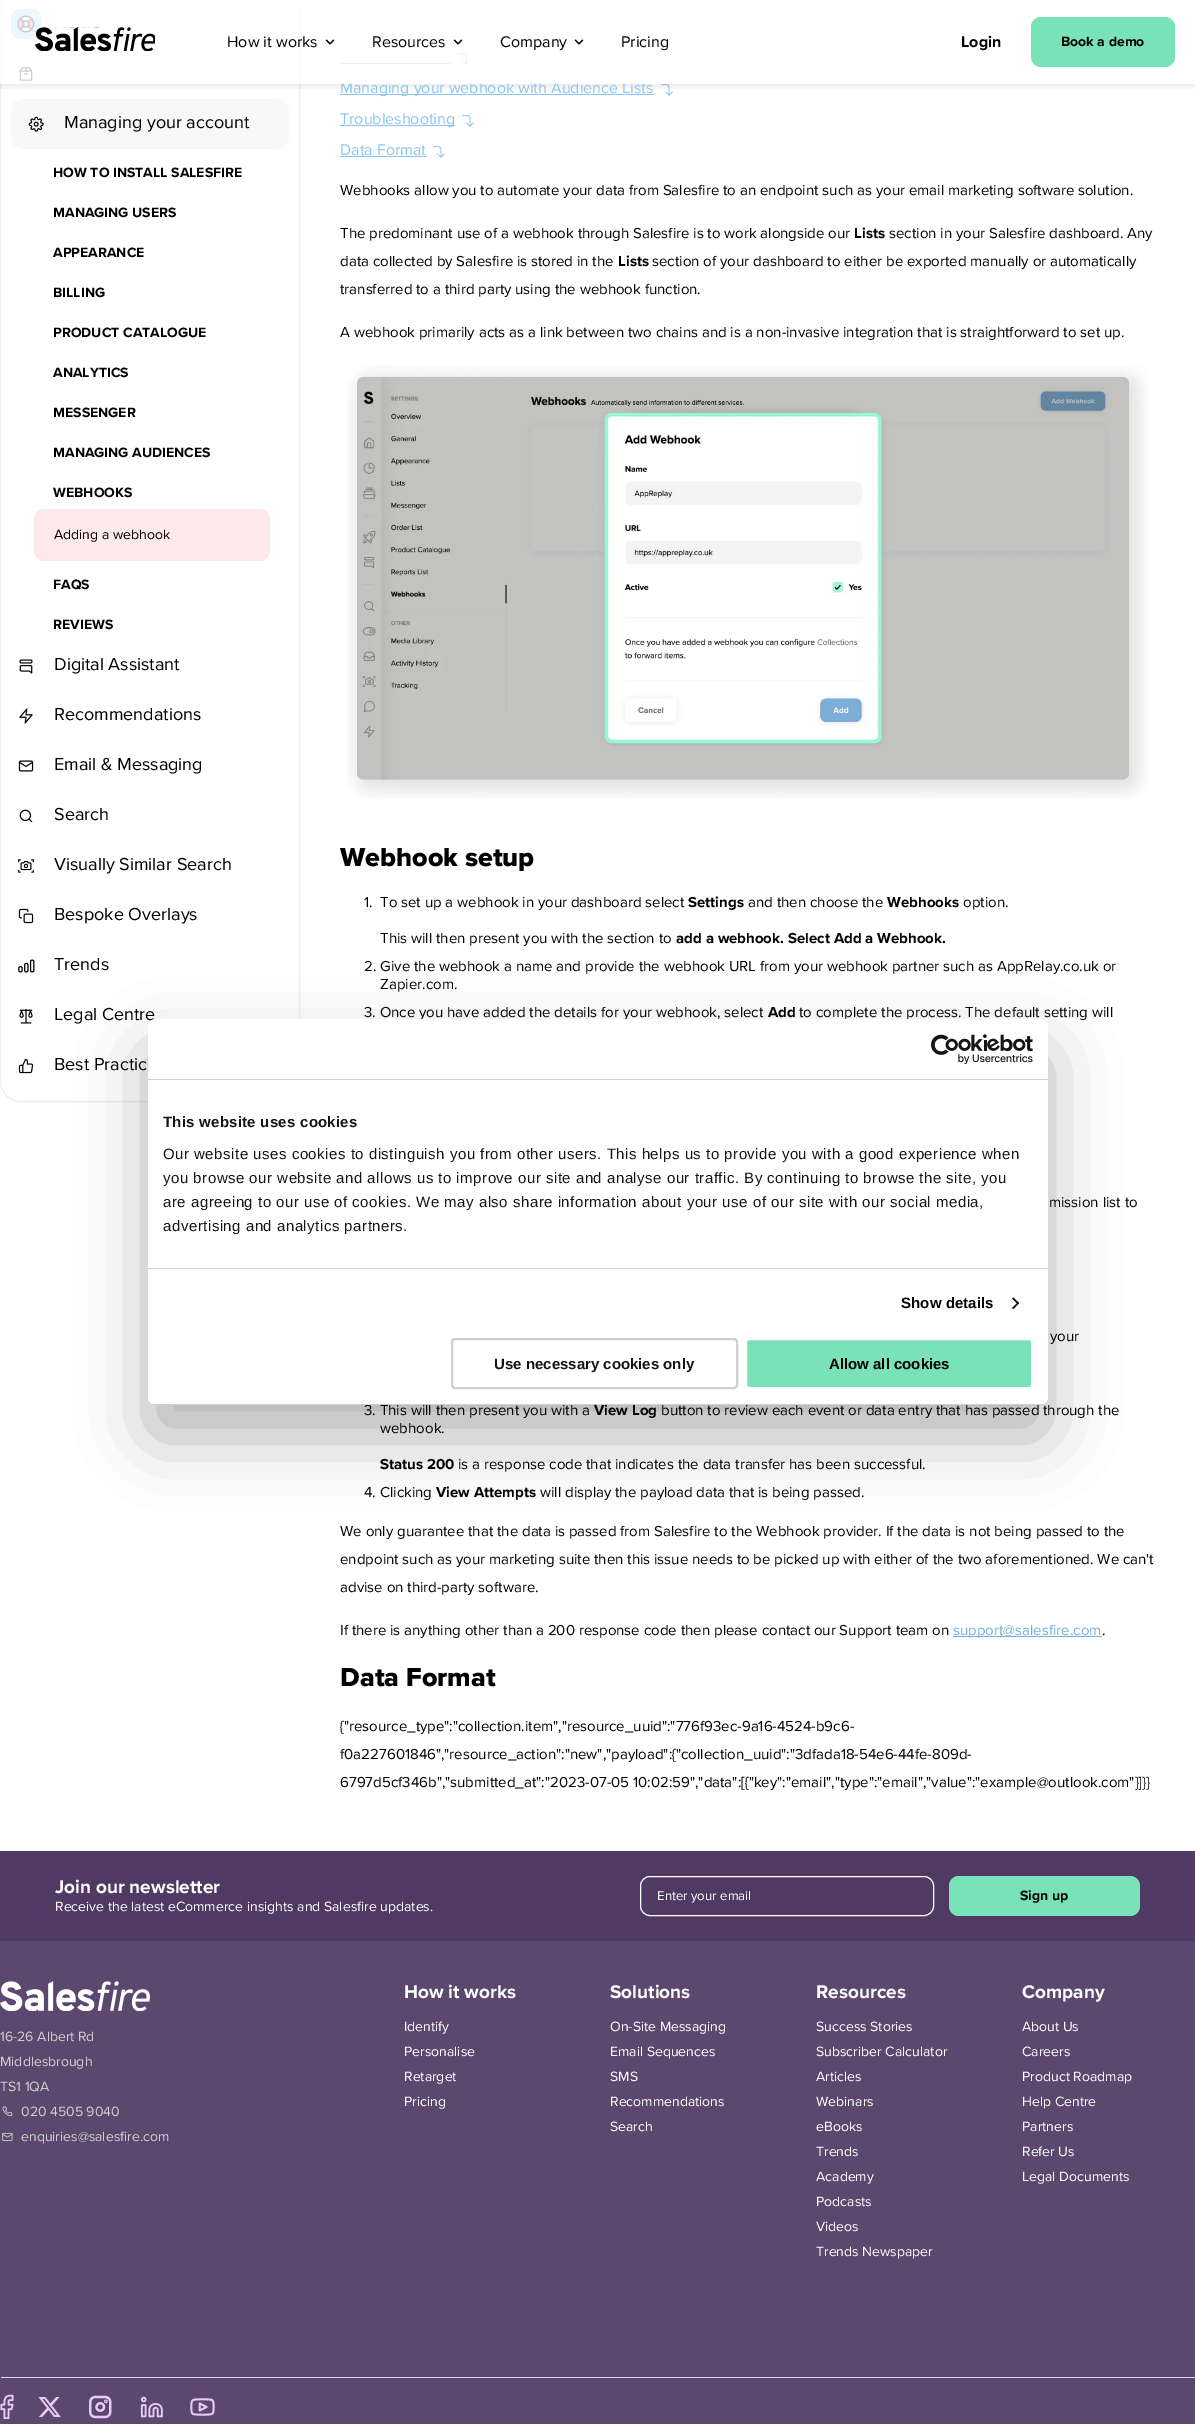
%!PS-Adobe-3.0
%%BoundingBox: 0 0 1195 2424
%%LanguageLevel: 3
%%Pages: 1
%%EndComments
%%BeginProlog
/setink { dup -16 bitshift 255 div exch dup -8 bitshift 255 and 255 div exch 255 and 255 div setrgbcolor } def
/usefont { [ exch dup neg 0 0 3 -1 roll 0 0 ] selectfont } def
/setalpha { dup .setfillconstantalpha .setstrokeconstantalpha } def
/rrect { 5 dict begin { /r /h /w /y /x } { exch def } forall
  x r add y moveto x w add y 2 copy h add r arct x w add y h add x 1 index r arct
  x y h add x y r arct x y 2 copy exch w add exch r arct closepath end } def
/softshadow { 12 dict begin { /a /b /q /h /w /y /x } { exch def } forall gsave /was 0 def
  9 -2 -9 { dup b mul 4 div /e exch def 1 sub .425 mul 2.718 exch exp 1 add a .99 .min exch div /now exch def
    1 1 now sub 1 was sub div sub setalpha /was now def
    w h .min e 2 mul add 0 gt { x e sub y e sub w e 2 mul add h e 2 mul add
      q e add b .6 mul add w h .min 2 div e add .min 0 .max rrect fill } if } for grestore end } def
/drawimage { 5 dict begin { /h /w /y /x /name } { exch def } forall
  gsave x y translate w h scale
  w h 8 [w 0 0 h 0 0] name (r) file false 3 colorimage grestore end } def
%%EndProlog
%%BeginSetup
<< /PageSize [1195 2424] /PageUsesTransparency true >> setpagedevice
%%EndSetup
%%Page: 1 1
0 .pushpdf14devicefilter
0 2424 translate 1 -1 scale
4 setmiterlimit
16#FFFFFF setink
0 0 1195 2424 rectfill
16#EEEEEE setink
0.5 -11.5 299 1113 19.5 rrect stroke
(img3.raw) 11 9 30 30 drawimage
(img4.raw) 19 67 14 14 drawimage
16#8AC4EF setink
340 63 111 1 rectfill
(img15.raw) 458 53 12 12 drawimage
340 94 314 1 rectfill
(img15.raw) 661 84 12 12 drawimage
gsave
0 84 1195 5 rectclip
16#000000 setink
0 2 1195 84 0 4 0.1 softshadow
grestore
/ProximaNova-Regular 16 usefont
340 93 moveto (Managing your webhook with Audience Lists) show
0.8 setalpha
16#FFFFFF setink
0 0 645 84 rectfill
1 setalpha
(img1.raw) 35 27 120 24 drawimage
16#000000 setink
227 47 moveto (How it works) show
(img2.raw) 325 39 10 6 drawimage
372 47 moveto (Resources) show
(img2.raw) 453 39 10 6 drawimage
500 47 moveto (Company) show
(img2.raw) 574 39 10 6 drawimage
621 47 moveto (Pricing) show
/ProximaNova-Bold 16 usefont
961 47 moveto (Login) show
16#79E2B7 setink
1031 17 144 50 10 rrect fill
/ProximaNova-Bold 14 usefont
16#000000 setink
1061 46 moveto (Book a demo) show
16#F8F8F8 setink
11 99 278 50 12 rrect fill
(img5.raw) 28 116 16 16 drawimage
/ProximaNova-Regular 18 usefont
16#000000 setink
64 128 moveto (Managing your account) show
/ProximaNova-Bold 14 usefont
[
    [(HOW TO INSTALL SALESFIRE) 53 177]
    [(MANAGING USERS) 53 217]
    [(APPEARANCE) 53 257]
    [(BILLING) 53 297]
    [(PRODUCT CATALOGUE) 53 337]
    [(ANALYTICS) 53 377]
    [(MESSENGER) 53 417]
    [(MANAGING AUDIENCES) 53 457]
    [(WEBHOOKS) 53 497]
] { aload pop moveto show } forall
16#FDE8EC setink
34 509 236 52 10 rrect fill
/ProximaNova-Regular 14 usefont
16#000000 setink
54 539 moveto (Adding a webhook) show
/ProximaNova-Bold 14 usefont
53 589 moveto (FAQS) show
53 629 moveto (REVIEWS) show
(img6.raw) 19 659 14 15 drawimage
/ProximaNova-Regular 18 usefont
54 670 moveto (Digital Assistant) show
(img7.raw) 19 708 14 16 drawimage
54 720 moveto (Recommendations) show
(img8.raw) 18 760 16 12 drawimage
54 770 moveto (Email & Messaging) show
(img9.raw) 19 809 14 14 drawimage
54 820 moveto (Search) show
(img10.raw) 18 859 16 14 drawimage
54 870 moveto (Visually Similar Search) show
(img11.raw) 18 908 16 16 drawimage
54 920 moveto (Bespoke Overlays) show
(img12.raw) 18 959 17 14 drawimage
54 970 moveto (Trends) show
(img13.raw) 19 1008 14 16 drawimage
54 1020 moveto (Legal Centre) show
(img14.raw) 18 1058 16 16 drawimage
54 1070 moveto (Best Practic) show
16#8AC4EF setink
340 125 115 1 rectfill
/ProximaNova-Regular 16 usefont
340 124 moveto (Troubleshooting) show
(img15.raw) 462 115 12 12 drawimage
340 155 moveto (Data Format) show
340 156 86 1 rectfill
(img15.raw) 433 146 12 12 drawimage
/ProximaNova-Regular 15 usefont
16#000000 setink
340 195 moveto (Webhooks allow you to automate your data from Salesfire to an endpoint such as your email marketing software solution.) show
340 238 moveto (The predominant use of a webhook through Salesfire is to work alongside our) show
/ProximaNova-Bold 15 usefont
854 238 moveto (Lists) show
/ProximaNova-Regular 15 usefont
889 238 moveto (section in your Salesfire dashboard. Any) show
340 266 moveto (data collected by Salesfire is stored in the) show
/ProximaNova-Bold 15 usefont
618 266 moveto (Lists) show
/ProximaNova-Regular 15 usefont
[
    [(section of your dashboard to either be exported manually or automatically) 652 266]
    [(transferred to a third party using the webhook function.) 340 294]
    [(A webhook primarily acts as a link between two chains and is a non-invasive integration that is straightforward to set up.) 340 337]
] { aload pop moveto show } forall
(img16.raw) 347 365 802 434 drawimage
/ProximaNova-ExtraBold 27 usefont
340 866 moveto (Webhook setup) show
/ProximaNova-Regular 15 usefont
364 907 moveto (1.) show
380 907 moveto (To set up a webhook in your dashboard select) show
/ProximaNova-Bold 15 usefont
688 907 moveto (Settings) show
/ProximaNova-Regular 15 usefont
748 907 moveto (and then choose the) show
/ProximaNova-Bold 15 usefont
887 907 moveto (Webhooks) show
/ProximaNova-Regular 15 usefont
963 907 moveto (option.) show
380 943 moveto (This will then present you with the section to) show
/ProximaNova-Bold 15 usefont
676 943 moveto (add a webhook. Select Add a Webhook.) show
/ProximaNova-Regular 15 usefont
[
    [(2. Give the webhook a name and provide the webhook URL from your webhook partner such as AppRelay.co.uk or) 364 971]
    [(Zapier.com.) 380 989]
    [(3. Once you have added the details for your webhook, select) 364 1017]
] { aload pop moveto show } forall
/ProximaNova-Bold 15 usefont
768 1017 moveto (Add) show
/ProximaNova-Regular 15 usefont
[
    [(to complete the process. The default setting will) 799 1017]
    [(mission list to) 1049 1207]
    [(your) 1050 1341]
    [(3. This will then present you with a) 364 1415]
] { aload pop moveto show } forall
/ProximaNova-Bold 15 usefont
594 1415 moveto (View Log) show
/ProximaNova-Regular 15 usefont
661 1415 moveto (button to review each event or data entry that has passed through the) show
380 1433 moveto (webhook.) show
/ProximaNova-Bold 15 usefont
380 1469 moveto (Status 200) show
/ProximaNova-Regular 15 usefont
458 1469 moveto (is a response code that indicates the data transfer has been successful.) show
364 1497 moveto (4. Clicking) show
/ProximaNova-Bold 15 usefont
436 1497 moveto (View Attempts) show
/ProximaNova-Regular 15 usefont
[
    [(will display the payload data that is being passed.) 540 1497]
    [(We only guarantee that the data is passed from Salesfire to the Webhook provider. If the data is not being passed to the) 340 1536]
    [(endpoint such as your marketing suite then this issue needs to be picked up with either of the two aforementioned. We can't) 340 1564]
    [(advise on third-party software.) 340 1592]
    [(If there is anything other than a 200 response code then please contact our Support team on) 340 1635]
] { aload pop moveto show } forall
16#72AEDB setink
953 1636 149 1 rectfill
953 1635 moveto (support@salesfire.com) show
16#000000 setink
1102 1635 moveto (.) show
/ProximaNova-ExtraBold 27 usefont
340 1686 moveto (Data Format) show
/ProximaNova-Regular 15 usefont
[
    [({"resource_type":"collection.item","resource_uuid":"776f93ec-9a16-4524-b9c6-) 340 1731]
    [(f0a227601846","resource_action":"new","payload":{"collection_uuid":"3dfada18-54e6-44fe-809d-) 340 1759]
    [(6797d5cf346b","submitted_at":"2023-07-05 10:02:59","data":[{"key":"email","type":"email","value":"example@outlook.com"}]}}) 340 1787]
] { aload pop moveto show } forall
148 1051 900 386 8 34 0.3 softshadow
16#FFFFFF setink
148 1019 900 386 8 rrect fill
16#CFCFCF setink
148 1079 900 1 rectfill
(img17.raw) 931 1034 102 30 drawimage
148 1268 900 1 rectfill
/LiberationSans-Bold 15 usefont
16#141414 setink
163 1127 moveto 0.25 0 (This website uses cookies) ashow
/LiberationSans-Regular 15 usefont
163 1159 moveto 0.5 0 (Our website uses cookies to distinguish you from other users. This helps us to provide you with a good experience when) ashow
163 1183 moveto 0.5 0 (you browse our website and allows us to improve our site and analyse our traffic. By continuing to browse the site, you) ashow
163 1207 moveto 0.5 0 (are agreeing to our use of cookies. We may also share information about your use of our site with our social media,) ashow
163 1231 moveto 0.5 0 (advertising and analytics partners.) ashow
/LiberationSans-Bold 15 usefont
16#000000 setink
901 1308 moveto 0.1 0 (Show details) ashow
16#141414 setink
1013.5 1297.5 moveto 1019 1303 lineto 1018 1304.5 lineto 1012 1298.5 lineto closepath fill
1018 1302 moveto 1019 1303 lineto 1013.5 1309 lineto 1012 1308 lineto closepath fill
gsave
148 1019 900 386 8 rrect clip newpath
16#CFCFCF setink
148 1404 900 1 rectfill
grestore
16#CFCFCF setink
2 setlinewidth
452 1339 285 49 3 rrect stroke
16#141414 setink
494 1369 moveto (Use necessary cookies only) show
16#79E2B7 setink
746 1339 286 49 3 rrect gsave fill grestore
16#FFFFFF setink
stroke
16#000000 setink
829 1369 moveto (Allow all cookies) show
16#5C486E setink
0 1941 1195 483 rectfill
16#503A64 setink
0 1851 1195 90 rectfill
/ProximaNova-Bold 19 usefont
16#FFFFFF setink
55 1893 moveto (Join our newsletter) show
/ProximaNova-Regular 14 usefont
55 1911 moveto (Receive the latest eCommerce insights and Salesfire updates.) show
1 setlinewidth
640.5 1876.5 293 39 9.5 rrect stroke
/ProximaNova-Regular 13.25 usefont
657 1900 moveto (Enter your email) show
16#79E2B7 setink
949 1876 191 40 10 rrect fill
/ProximaNova-Bold 14 usefont
16#000000 setink
1020 1900 moveto (Sign up) show
(img18.raw) 0 1981 150 30 drawimage
/ProximaNova-Regular 14 usefont
16#CFCFCF setink
[
    [(16-26 Albert Rd) 0 2041]
    [(Middlesbrough) 0 2066]
    [(TS1 1QA) 0 2091]
] { aload pop moveto show } forall
(img19.raw) 2 2106 11 11 drawimage
21 2116 moveto (020 4505 9040) show
(img20.raw) 2 2132 11 9 drawimage
21 2141 moveto (enquiries@salesfire.com) show
/ProximaNova-Bold 19 usefont
16#FFFFFF setink
404 1998 moveto (How it works) show
/ProximaNova-Regular 14 usefont
[
    [(Identify) 404 2031]
    [(Personalise) 404 2056]
    [(Retarget) 404 2081]
    [(Pricing) 404 2106]
] { aload pop moveto show } forall
/ProximaNova-Bold 19 usefont
610 1998 moveto (Solutions) show
/ProximaNova-Regular 14 usefont
[
    [(On-Site Messaging) 610 2031]
    [(Email Sequences) 610 2056]
    [(SMS) 610 2081]
    [(Recommendations) 610 2106]
    [(Search) 610 2131]
] { aload pop moveto show } forall
/ProximaNova-Bold 19 usefont
816 1998 moveto (Resources) show
/ProximaNova-Regular 14 usefont
[
    [(Success Stories) 816 2031]
    [(Subscriber Calculator) 816 2056]
    [(Articles) 816 2081]
    [(Webinars) 816 2106]
    [(eBooks) 816 2131]
    [(Trends) 816 2156]
    [(Academy) 816 2181]
    [(Podcasts) 816 2206]
    [(Videos) 816 2231]
    [(Trends Newspaper) 816 2256]
] { aload pop moveto show } forall
/ProximaNova-Bold 19 usefont
1022 1998 moveto (Company) show
/ProximaNova-Regular 14 usefont
[
    [(About Us) 1022 2031]
    [(Careers) 1022 2056]
    [(Product Roadmap) 1022 2081]
    [(Help Centre) 1022 2106]
    [(Partners) 1022 2131]
    [(Refer Us) 1022 2156]
    [(Legal Documents) 1022 2181]
] { aload pop moveto show } forall
16#EAC9FB setink
1 2377 1194 1 rectfill
(img21.raw) 0 2394 14 25 drawimage
(img22.raw) 38 2397 23 20 drawimage
(img23.raw) 89 2395 23 24 drawimage
(img24.raw) 140 2396 23 22 drawimage
(img25.raw) 190 2398 25 18 drawimage
.poppdf14devicefilter showpage
%%EOF
